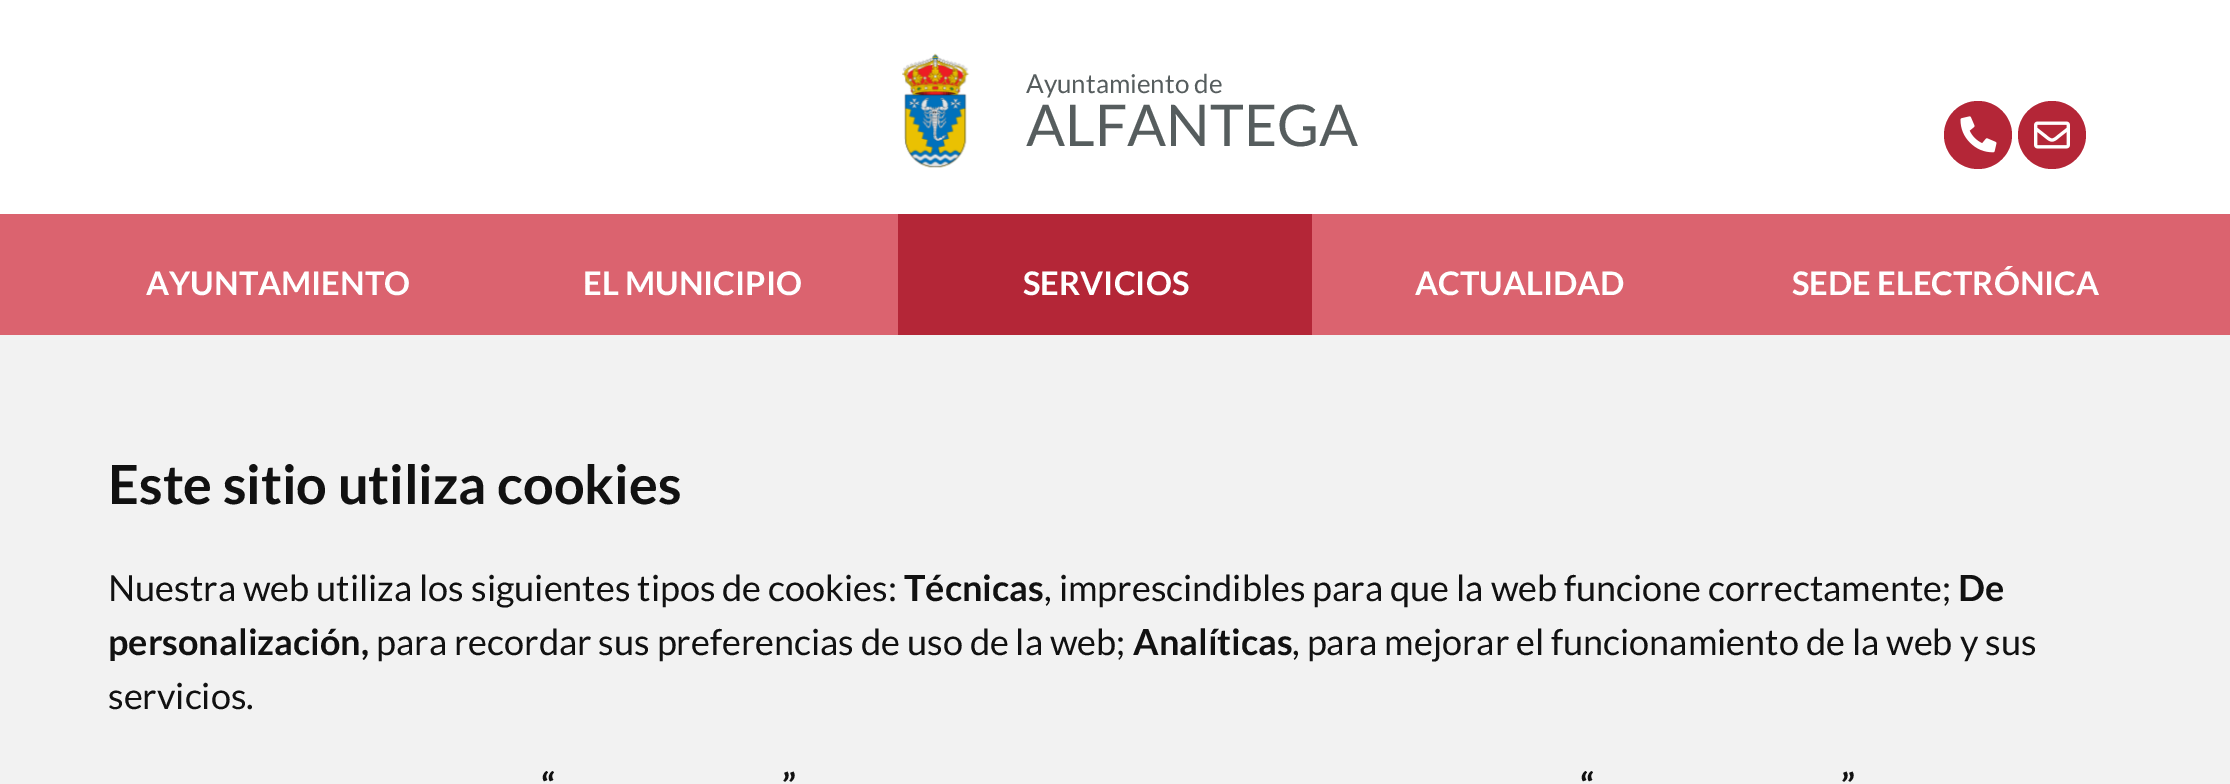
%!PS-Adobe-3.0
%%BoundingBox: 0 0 2230 784
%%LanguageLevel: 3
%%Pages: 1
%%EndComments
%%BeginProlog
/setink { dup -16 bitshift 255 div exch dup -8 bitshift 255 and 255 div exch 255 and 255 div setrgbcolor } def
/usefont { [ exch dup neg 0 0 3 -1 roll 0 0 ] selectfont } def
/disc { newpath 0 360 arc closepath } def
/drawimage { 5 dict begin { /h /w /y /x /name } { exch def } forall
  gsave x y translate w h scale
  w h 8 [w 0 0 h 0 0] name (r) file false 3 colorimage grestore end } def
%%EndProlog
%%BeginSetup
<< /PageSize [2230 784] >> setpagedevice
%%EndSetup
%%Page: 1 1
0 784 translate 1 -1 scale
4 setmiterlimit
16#FFFFFF setink
0 0 2230 784 rectfill
(img1.raw) 902 53 68 115 drawimage
/Lato-Regular 26 usefont
16#565D5E setink
1026 93 moveto (Ayuntamiento de) show
/Lato-Regular 57.5 usefont
1026 146 moveto (ALFANTEGA) show
16#B42637 setink
1978 135 34 disc fill
(img2.raw) 1960 116 37 37 drawimage
2052 135 34 disc fill
(img3.raw) 2034 121 36 28 drawimage
16#DB636F setink
0 214 2230 121 rectfill
/Lato-Bold 32.5 usefont
16#FFFFFF setink
146 295 moveto (AYUNTAMIENTO) show
583 295 moveto (EL MUNICIPIO) show
16#B42637 setink
898 214 414 121 rectfill
16#FFFFFF setink
[
    [(SERVICIOS) 1023 295]
    [(ACTUALIDAD) 1415 295]
    [(SEDE ELECTRÓNICA) 1792 295]
] { aload pop moveto show } forall
16#F2F2F2 setink
0 335 2230 449 rectfill
/Lato-Bold 54 usefont
16#111111 setink
108 504 moveto (Este sitio utiliza cookies) show
/Lato-Regular 36 usefont
108 601 moveto (Nuestra web utiliza los siguientes tipos de cookies:) show
/Lato-Bold 36 usefont
904 601 moveto (Técnicas) show
/Lato-Regular 36 usefont
1044 601 moveto (, imprescindibles para que la web funcione correctamente;) show
/Lato-Bold 36 usefont
1958 601 moveto (De) show
108 655 moveto (personalización,) show
/Lato-Regular 36 usefont
376 655 moveto (para recordar sus preferencias de uso de la web;) show
/Lato-Bold 36 usefont
1133 655 moveto (Analíticas) show
/Lato-Regular 36 usefont
1292 655 moveto (, para mejorar el funcionamiento de la web y sus) show
108 709 moveto (servicios.) show
/Lato-Bold 36 usefont
[
    [(“) 541 799]
    [(”) 782 799]
    [(“) 1580 799]
    [(”) 1841 799]
] { aload pop moveto show } forall
showpage
%%EOF
